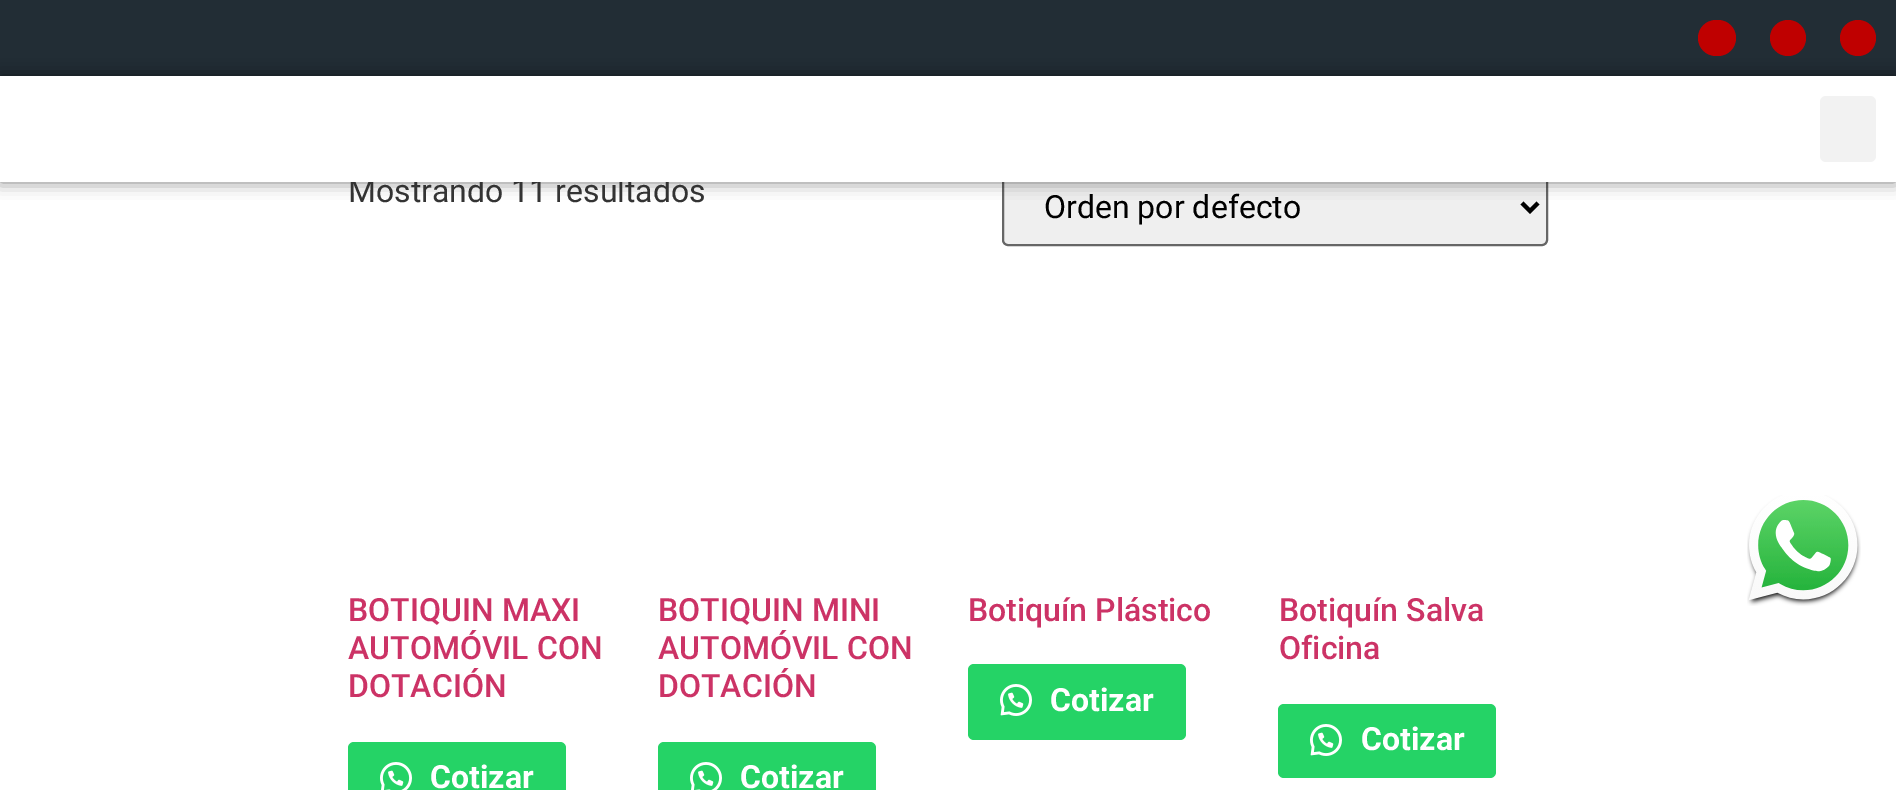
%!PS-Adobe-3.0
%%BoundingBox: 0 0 1896 790
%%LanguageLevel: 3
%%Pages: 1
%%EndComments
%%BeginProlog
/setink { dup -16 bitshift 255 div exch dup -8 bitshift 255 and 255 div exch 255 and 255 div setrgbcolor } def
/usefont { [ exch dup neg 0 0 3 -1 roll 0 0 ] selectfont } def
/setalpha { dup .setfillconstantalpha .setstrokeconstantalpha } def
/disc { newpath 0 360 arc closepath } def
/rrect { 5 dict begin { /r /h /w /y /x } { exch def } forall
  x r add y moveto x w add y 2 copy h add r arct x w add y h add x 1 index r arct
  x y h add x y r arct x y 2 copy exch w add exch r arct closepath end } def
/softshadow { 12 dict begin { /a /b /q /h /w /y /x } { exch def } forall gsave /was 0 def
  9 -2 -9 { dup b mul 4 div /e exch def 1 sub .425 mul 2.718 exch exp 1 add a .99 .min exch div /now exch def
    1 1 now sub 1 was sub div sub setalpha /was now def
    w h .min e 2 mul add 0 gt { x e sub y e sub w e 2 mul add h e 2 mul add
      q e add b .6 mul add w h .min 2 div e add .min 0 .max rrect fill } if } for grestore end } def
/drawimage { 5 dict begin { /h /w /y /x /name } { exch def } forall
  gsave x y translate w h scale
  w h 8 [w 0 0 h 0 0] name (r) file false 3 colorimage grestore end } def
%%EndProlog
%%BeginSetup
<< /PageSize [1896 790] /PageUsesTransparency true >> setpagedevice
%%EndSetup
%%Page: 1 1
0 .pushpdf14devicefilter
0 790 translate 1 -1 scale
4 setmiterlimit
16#FFFFFF setink
0 0 1896 790 rectfill
16#222D35 setink
0 0 1896 76 rectfill
16#BF0000 setink
1698 20 38 36 18 rrect fill
1788 38 18 disc fill
1858 38 18 disc fill
16#EFEFEF setink
1003 169 544 76 5 rrect gsave fill grestore
16#666666 setink
2 setlinewidth
stroke
16#000000 setink
4 setlinewidth
1522 203 moveto 1530 211 lineto 1538 203 lineto stroke
0 76 1896 106 0 8 0.5 softshadow
/Roboto-Regular 32 usefont
16#333333 setink
348 202 moveto (Mostrando 11 resultados) show
16#FFFFFF setink
0 76 1896 106 rectfill
16#F2F2F2 setink
1820 96 56 66 6 rrect fill
16#000000 setink
1044 218 moveto (Orden por defecto) show
/Roboto-Medium 32 usefont
16#CC3366 setink
[
    [(BOTIQUIN MAXI) 348 621]
    [(AUTOMÓVIL CON) 348 659]
    [(DOTACIÓN) 348 697]
] { aload pop moveto show } forall
16#25D366 setink
348 742 218 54 6 rrect fill
(img1.raw) 380 762 32 28 drawimage
/Roboto-Bold 32 usefont
16#FFFFFF setink
430 788 moveto (Cotizar) show
/Roboto-Medium 32 usefont
16#CC3366 setink
[
    [(BOTIQUIN MINI) 658 621]
    [(AUTOMÓVIL CON) 658 659]
    [(DOTACIÓN) 658 697]
] { aload pop moveto show } forall
16#25D366 setink
658 742 218 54 6 rrect fill
(img1.raw) 690 762 32 28 drawimage
/Roboto-Bold 32 usefont
16#FFFFFF setink
740 788 moveto (Cotizar) show
/Roboto-Medium 32 usefont
16#CC3366 setink
968 621 moveto (Botiquín Plástico) show
16#25D366 setink
968 664 218 76 6 rrect fill
(img2.raw) 1000 684 32 32 drawimage
/Roboto-Bold 32 usefont
16#FFFFFF setink
1050 711 moveto (Cotizar) show
/Roboto-Medium 32 usefont
16#CC3366 setink
1279 621 moveto (Botiquín Salva) show
1279 659 moveto (Oficina) show
16#25D366 setink
1278 704 218 74 6 rrect fill
(img2.raw) 1310 724 32 32 drawimage
/Roboto-Bold 32 usefont
16#FFFFFF setink
1361 750 moveto (Cotizar) show
(img3.raw) 1747 495 114 111 drawimage
.poppdf14devicefilter showpage
%%EOF
